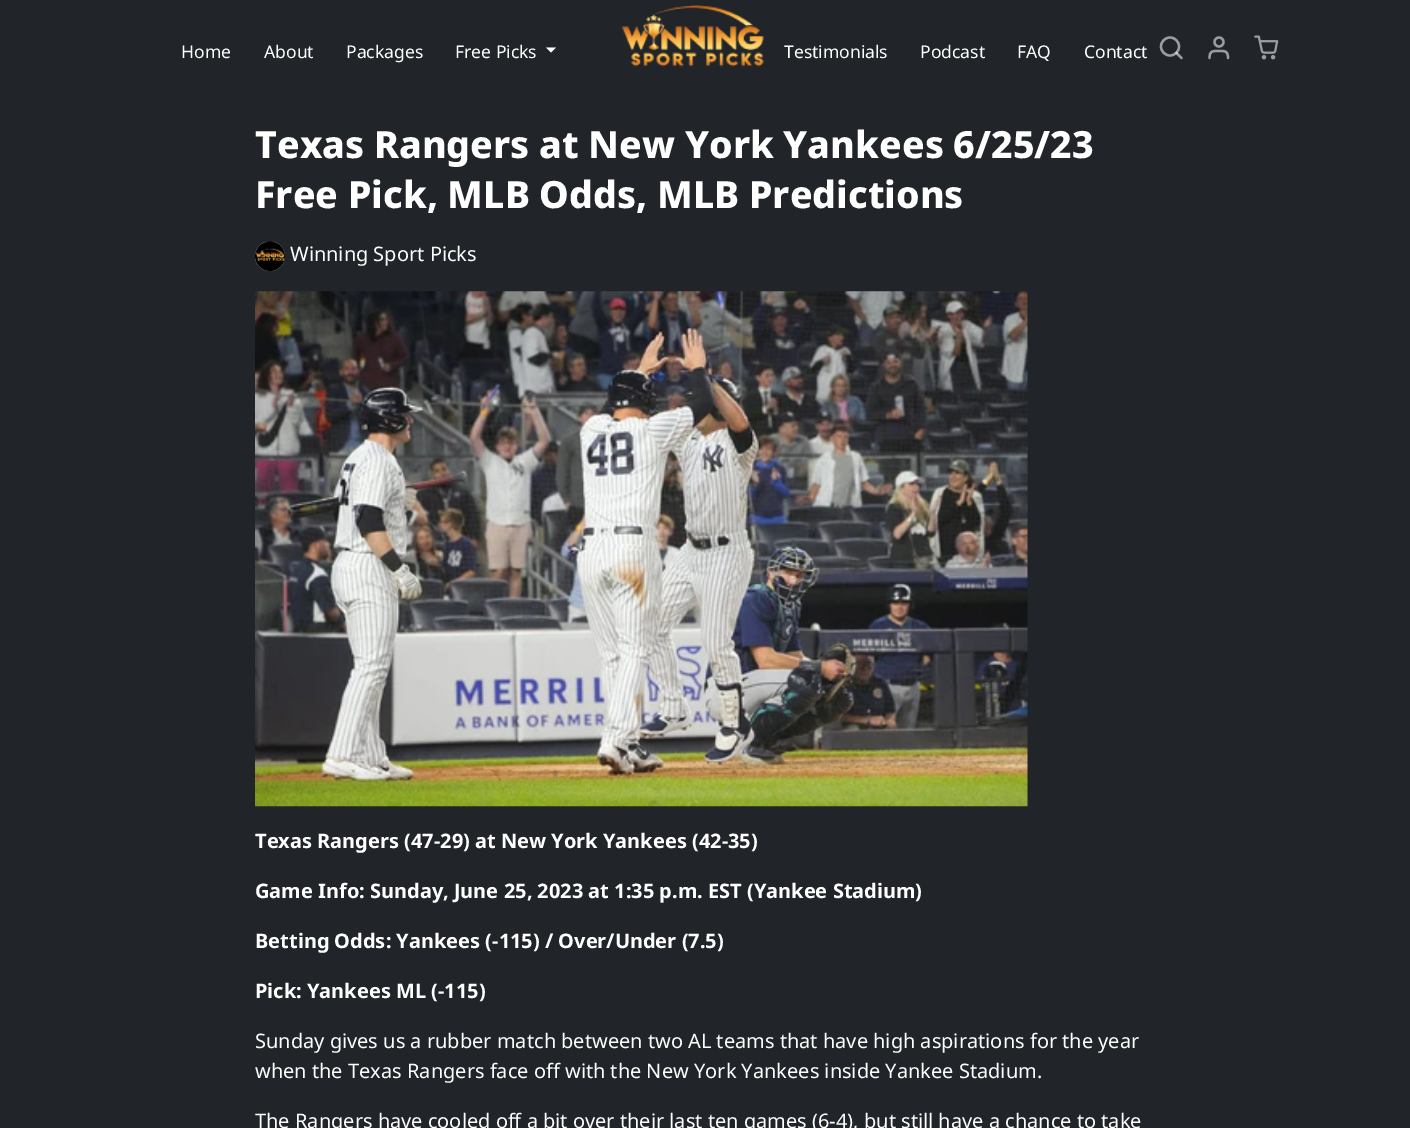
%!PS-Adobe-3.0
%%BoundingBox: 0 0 1410 1128
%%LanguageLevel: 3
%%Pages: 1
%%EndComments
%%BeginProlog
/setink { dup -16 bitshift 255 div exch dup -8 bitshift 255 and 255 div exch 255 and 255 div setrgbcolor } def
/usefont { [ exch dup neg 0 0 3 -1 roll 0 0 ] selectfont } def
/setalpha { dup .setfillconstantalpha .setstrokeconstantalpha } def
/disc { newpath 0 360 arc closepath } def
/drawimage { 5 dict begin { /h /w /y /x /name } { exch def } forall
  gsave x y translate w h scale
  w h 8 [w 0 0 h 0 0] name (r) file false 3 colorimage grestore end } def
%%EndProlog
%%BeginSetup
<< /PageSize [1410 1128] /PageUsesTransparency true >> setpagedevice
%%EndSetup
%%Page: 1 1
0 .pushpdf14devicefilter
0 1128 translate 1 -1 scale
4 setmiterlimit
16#212529 setink
0 0 1410 1128 rectfill
/NotoSans-Regular 17.5 usefont
16#FFFFFF setink
[
    [(Home) 181 58]
    [(About) 264 58]
    [(Packages) 346 58]
    [(Free Picks) 455 58]
] { aload pop moveto show } forall
546 47.5 moveto 556 47.5 lineto 551 52.5 lineto closepath fill
(img1.raw) 621 5 143 62 drawimage
[
    [(Testimonials) 784 58]
    [(Podcast) 920 58]
    [(FAQ) 1017 58]
    [(Contact) 1084 58]
] { aload pop moveto show } forall
16#9B9D9F setink
2.3 setlinewidth
1170 46.5 9 disc stroke
0.55 setalpha
16#FFFFFF setink
1 setlinecap
1 setlinejoin
1181.5 58 moveto 1176.5 53 lineto stroke
1 setalpha
16#9B9D9F setink
0 setlinecap
0 setlinejoin
1219 42 4.5 disc stroke
1 setlinecap
1 setlinejoin
1228 58 moveto 1228 50.5 1225 51 1219 51 curveto 1212.5 51 1209.5 50.5 1209.5 58 curveto stroke
(img2.raw) 1254 35 25 25 drawimage
/NotoSans-ExtraBold 37.5 usefont
16#FFFFFF setink
255 158 moveto (Texas Rangers at New York Yankees 6/25/23) show
255 208 moveto (Free Pick, MLB Odds, MLB Predictions) show
(img3.raw) 255 241 30 30 drawimage
/NotoSans-Regular 20 usefont
290 261 moveto (Winning Sport Picks) show
(img4.raw) 255 291 773 516 drawimage
/NotoSans-Bold 20 usefont
[
    [(Texas Rangers \(47-29\) at New York Yankees \(42-35\)) 255 848]
    [(Game Info: Sunday, June 25, 2023 at 1:35 p.m. EST \(Yankee Stadium\)) 255 898]
    [(Betting Odds: Yankees \(-115\) / Over/Under \(7.5\)) 255 948]
    [(Pick: Yankees ML \(-115\)) 255 998]
] { aload pop moveto show } forall
/NotoSans-Regular 20 usefont
[
    [(Sunday gives us a rubber match between two AL teams that have high aspirations for the year) 255 1048]
    [(when the Texas Rangers face off with the New York Yankees inside Yankee Stadium.) 255 1078]
    [(The Rangers have cooled off a bit over their last ten games \(6-4\), but still have a chance to take) 255 1128]
] { aload pop moveto show } forall
.poppdf14devicefilter showpage
%%EOF
